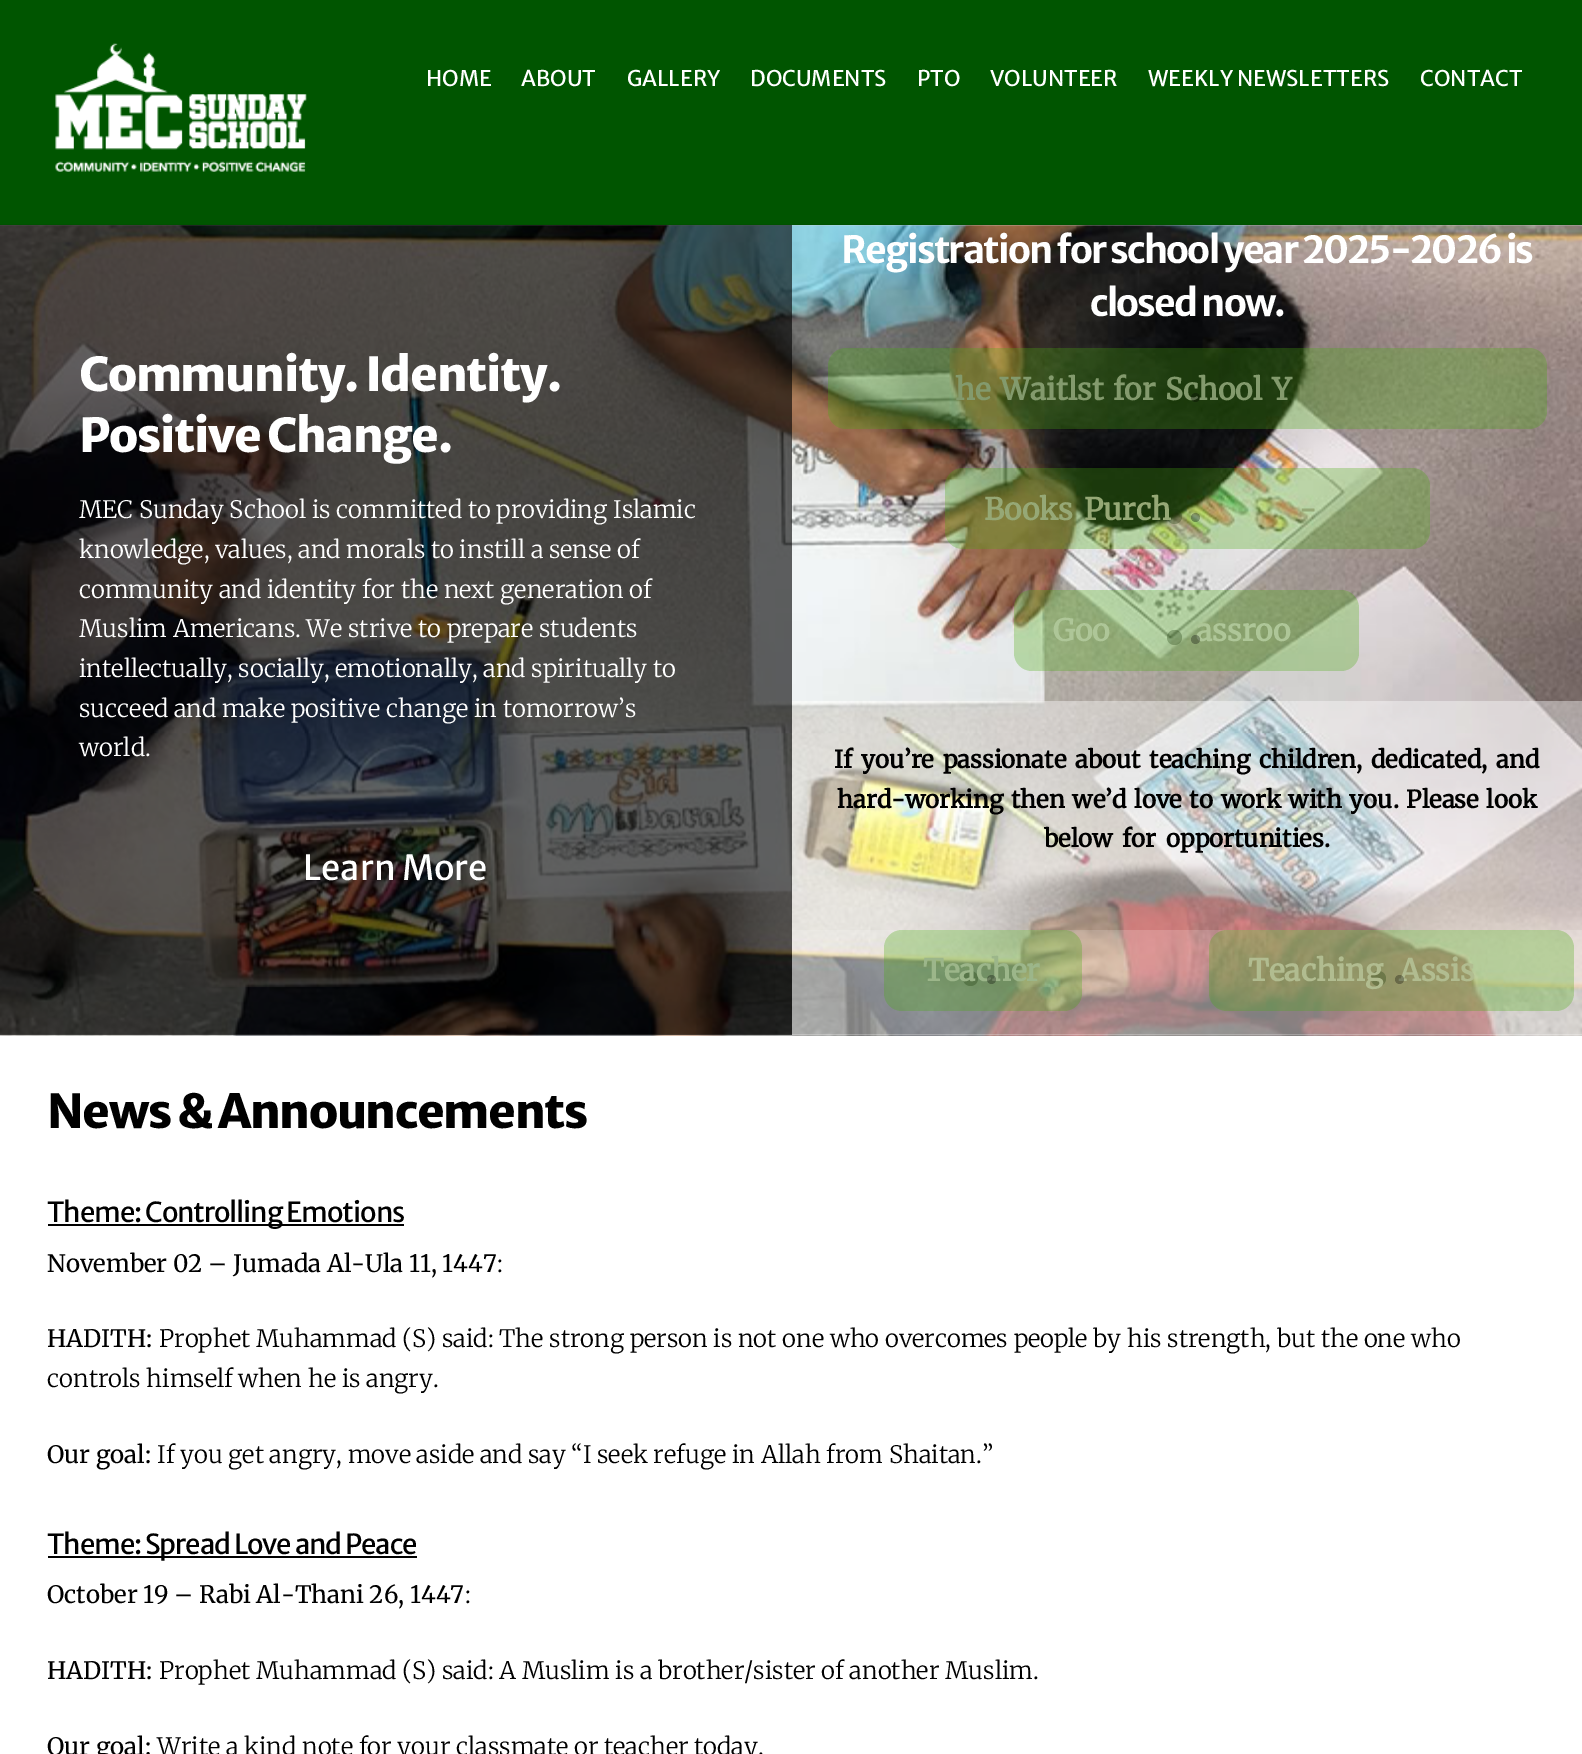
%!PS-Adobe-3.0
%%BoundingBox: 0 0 1582 1754
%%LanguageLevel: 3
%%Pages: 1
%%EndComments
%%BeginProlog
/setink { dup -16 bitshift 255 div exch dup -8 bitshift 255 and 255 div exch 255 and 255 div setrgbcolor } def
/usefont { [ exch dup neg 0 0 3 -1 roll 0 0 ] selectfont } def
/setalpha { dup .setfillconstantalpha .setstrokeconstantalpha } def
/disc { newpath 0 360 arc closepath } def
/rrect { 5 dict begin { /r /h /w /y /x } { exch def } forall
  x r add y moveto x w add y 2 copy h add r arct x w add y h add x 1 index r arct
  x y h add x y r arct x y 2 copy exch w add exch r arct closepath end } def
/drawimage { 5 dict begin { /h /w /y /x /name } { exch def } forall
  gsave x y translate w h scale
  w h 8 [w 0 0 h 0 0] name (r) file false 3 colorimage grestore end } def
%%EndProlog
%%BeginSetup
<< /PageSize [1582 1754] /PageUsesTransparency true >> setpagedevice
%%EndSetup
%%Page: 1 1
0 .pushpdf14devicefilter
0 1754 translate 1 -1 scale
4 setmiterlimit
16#FFFFFF setink
0 0 1582 1754 rectfill
16#005500 setink
0 0 1582 225 rectfill
(img2.raw) 0 225 1582 811 drawimage
0.62 setalpha
16#000000 setink
0 225 792 810 rectfill
0.05 setalpha
0 224 1582 2 rectfill
1 setalpha
(img1.raw) 55 43 252 129 drawimage
/MerriweatherSans-Regular 21.6 usefont
16#FFFFFF setink
[
    [(HOME) 426 86]
    [(ABOUT) 521 86]
    [(GALLERY) 627 86]
    [(DOCUMENTS) 750 86]
    [(PTO) 917 86]
    [(VOLUNTEER) 990 86]
    [(WEEKLY NEWSLETTERS) 1148 86]
    [(CONTACT) 1420 86]
] { aload pop moveto show } forall
/MerriweatherSans-ExtraBold 46.75 usefont
79 391 moveto -1.4 0 (Community. Identity.) ashow
79 452 moveto -1.4 0 (Positive Change.) ashow
/Merriweather-Light 24 usefont
[
    [(MEC Sunday School is committed to providing Islamic) 79 518]
    [(knowledge, values, and morals to instill a sense of) 79 558]
    [(community and identity for the next generation of) 79 598]
    [(Muslim Americans. We strive to prepare students) 79 637]
    [(intellectually, socially, emotionally, and spiritually to) 79 677]
    [(succeed and make positive change in tomorrow’s) 79 717]
    [(world.) 79 756]
] { aload pop moveto show } forall
/MerriweatherSans-Regular 34.5 usefont
303 880 moveto (Learn More) show
/MerriweatherSans-Bold 37.4 usefont
841 263 moveto -1.85 0 (Registration for school year 2025-2026 is) ashow
1090 316 moveto -1.85 0 (closed now.) ashow
0.3 setalpha
16#000000 setink
1174.5 396.5 7.5 disc fill
16#4AAB10 setink
828 348 719 81 18 rrect fill
/Merriweather-Bold 30 usefont
1 setalpha
16#839A6D setink
955 400 moveto 2.5 0 32 (he Waitlst for School Y) widthshow
0.3 setalpha
16#000000 setink
1195.5 397.5 4.5 disc fill
1174.5 516.5 7.5 disc fill
16#4AAB10 setink
945 468 485 81 18 rrect fill
1 setalpha
16#96A876 setink
984 520 moveto 4 0 32 (Books Purch) widthshow
1299 520 moveto 4 0 32 (-) widthshow
0.3 setalpha
16#000000 setink
1195.5 517.5 4.5 disc fill
1174.5 637.5 7.5 disc fill
16#4AAB10 setink
1014 590 345 81 18 rrect fill
1 setalpha
16#AEC698 setink
1053 641 moveto 7 0 32 (Goo) widthshow
1196 641 moveto 7 0 32 (assroo) widthshow
0.3 setalpha
16#000000 setink
1195.5 639.5 4.5 disc fill
0.4 setalpha
16#FFFFFF setink
792 701 790 229 rectfill
/Merriweather-Bold 24 usefont
1 setalpha
16#000000 setink
834 768 moveto 3 0 32 (If you’re passionate about teaching children, dedicated, and) widthshow
837 808 moveto 2 0 32 (hard-working then we’d love to work with you. Please look) widthshow
1044 847 moveto 4 0 32 (below for opportunities.) widthshow
0.5 setalpha
16#FFFFFF setink
792 930 790 105 rectfill
0.3 setalpha
16#000000 setink
970.5 978.5 7.5 disc fill
16#4AAB10 setink
884 930 198 81 18 rrect fill
/Merriweather-Bold 30 usefont
1 setalpha
16#9CB68A setink
923 981 moveto (Teacher) show
0.3 setalpha
16#000000 setink
991.5 979.5 4.5 disc fill
1378.5 978.5 7.5 disc fill
16#4AAB10 setink
1209 930 365 81 18 rrect fill
1 setalpha
16#B1BC90 setink
1248 981 moveto 9 0 32 (Teaching Assis) widthshow
0.3 setalpha
16#000000 setink
1399.5 979.5 4.5 disc fill
/MerriweatherSans-ExtraBold 46.75 usefont
1 setalpha
47 1128 moveto -1.4 0 (News & Announcements) ashow
48 1224 356 2 rectfill
/MerriweatherSans-Regular 27.6 usefont
47 1222 moveto -1.1 0 (Theme: Controlling Emotions) ashow
/Merriweather-Regular 24 usefont
47 1272 moveto (November 02 – Jumada Al-Ula 11, 1447) show
/Merriweather-Light 24 usefont
497 1272 moveto (:) show
/Merriweather-Regular 24 usefont
47 1347 moveto (HADITH:) show
/Merriweather-Light 24 usefont
159 1347 moveto (Prophet Muhammad \(S\) said: The strong person is not one who overcomes people by his strength, but the one who) show
47 1387 moveto (controls himself when he is angry.) show
/Merriweather-Regular 24 usefont
47 1463 moveto (Our goal:) show
/Merriweather-Light 24 usefont
157 1463 moveto (If you get angry, move aside and say “I seek refuge in Allah from Shaitan.”) show
48 1556 369 2 rectfill
/MerriweatherSans-Regular 27.6 usefont
47 1554 moveto -1.1 0 (Theme: Spread Love and Peace) ashow
/Merriweather-Regular 24 usefont
47 1603 moveto (October 19 – Rabi Al-Thani 26, 1447) show
/Merriweather-Light 24 usefont
465 1603 moveto (:) show
/Merriweather-Regular 24 usefont
47 1679 moveto (HADITH:) show
/Merriweather-Light 24 usefont
159 1679 moveto (Prophet Muhammad \(S\) said: A Muslim is a brother/sister of another Muslim.) show
/Merriweather-Regular 24 usefont
47 1755 moveto (Our goal:) show
/Merriweather-Light 24 usefont
157 1755 moveto (Write a kind note for your classmate or teacher today.) show
.poppdf14devicefilter showpage
%%EOF
